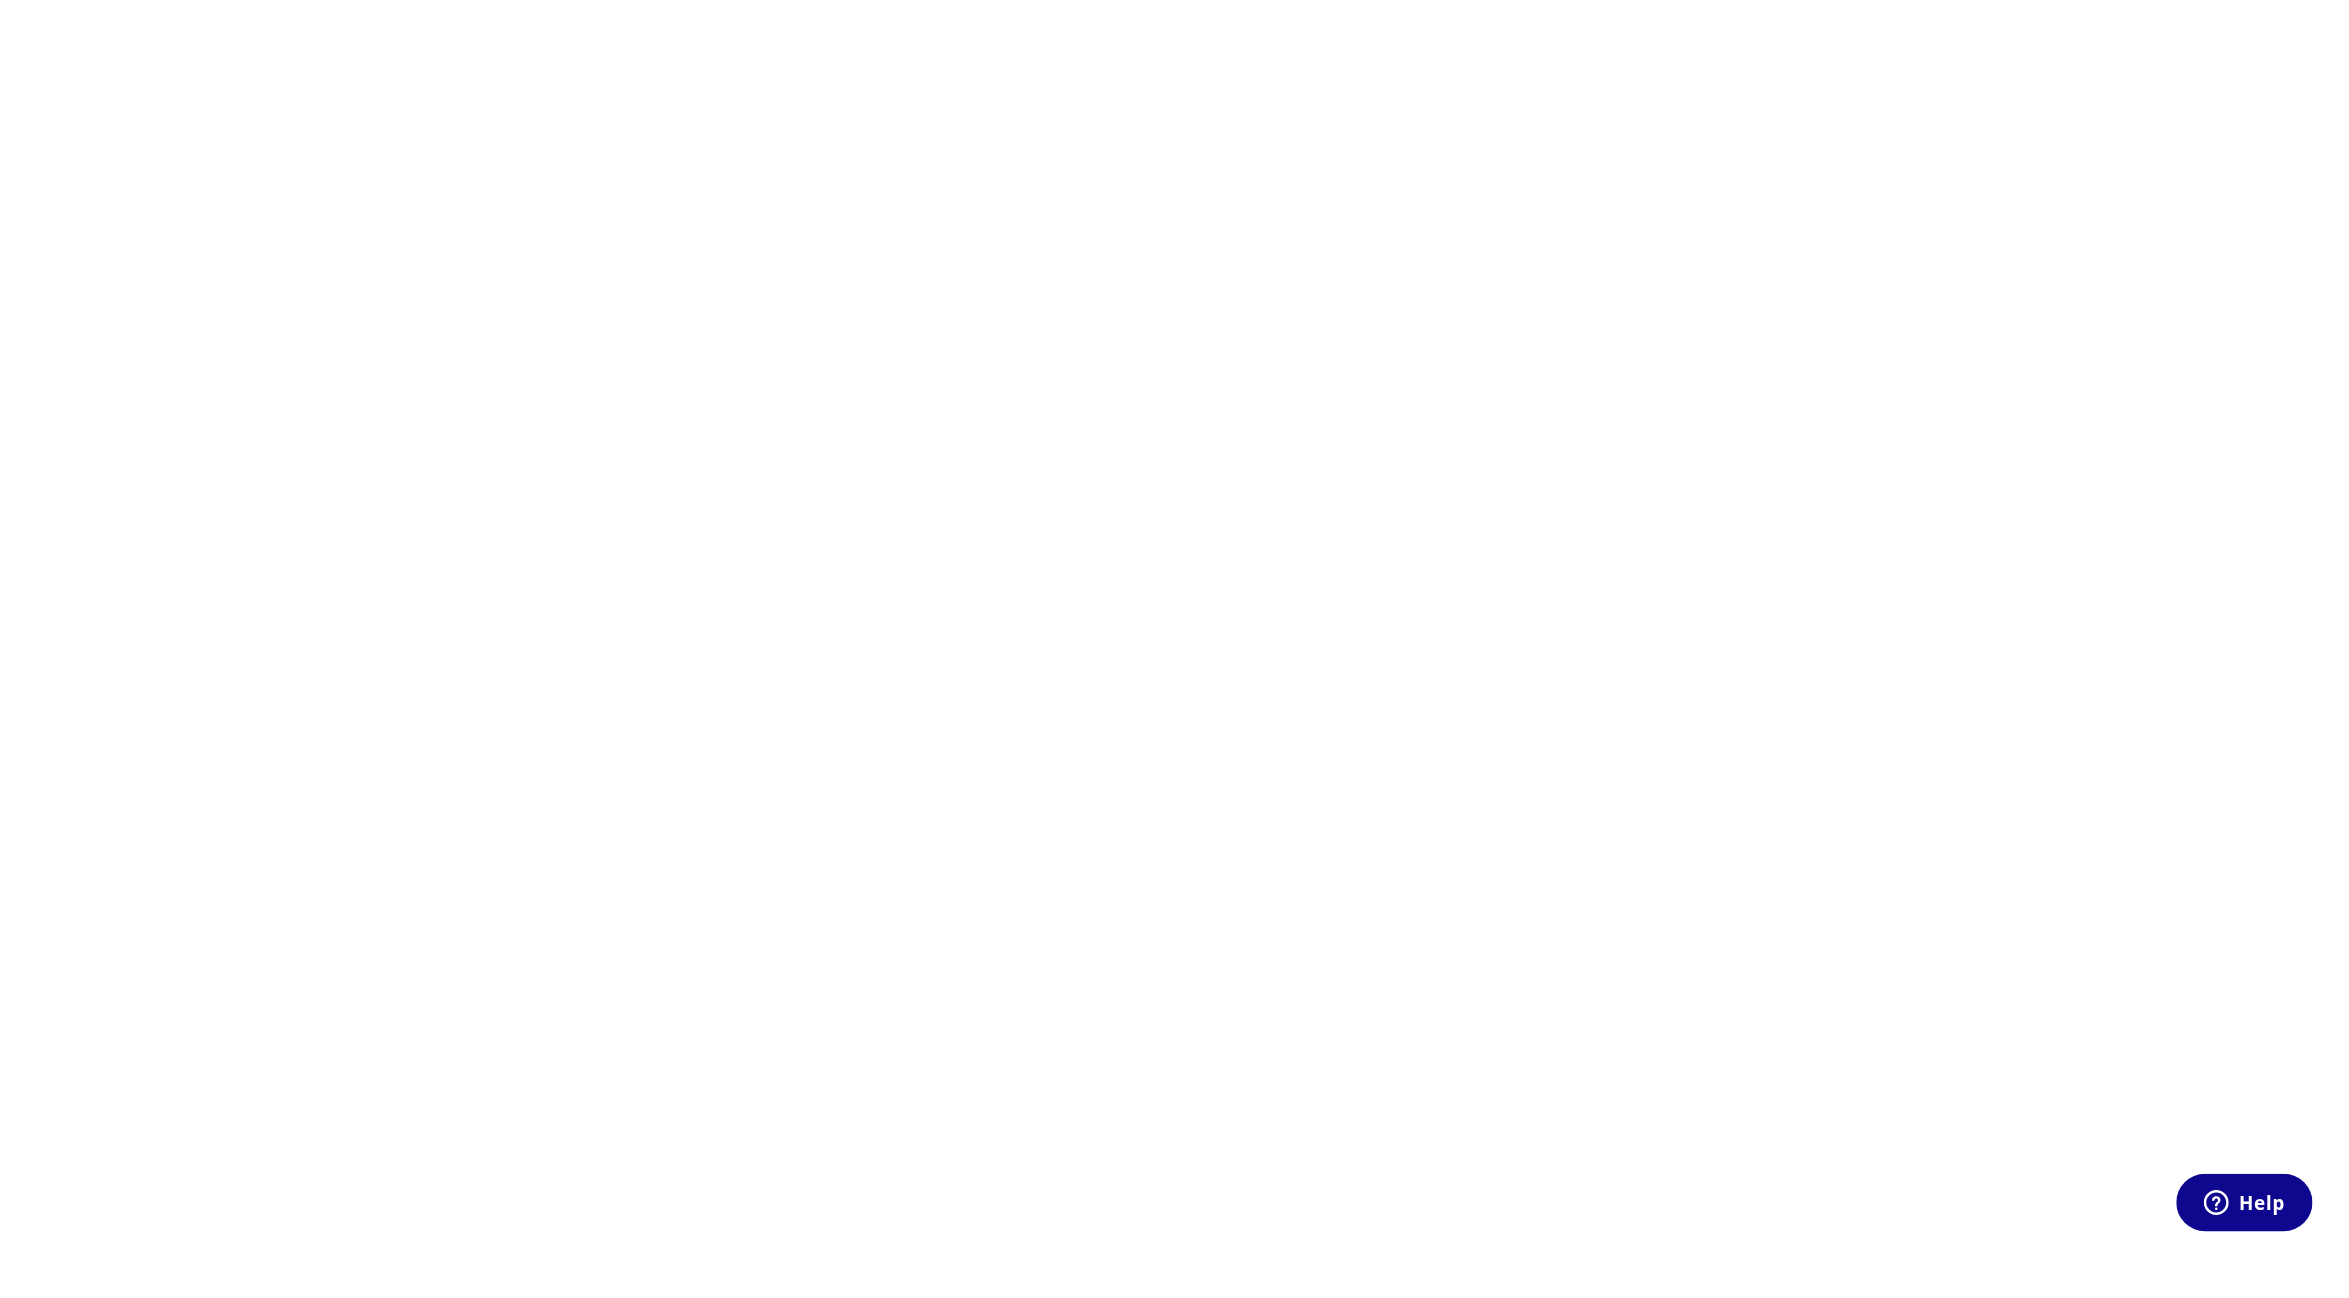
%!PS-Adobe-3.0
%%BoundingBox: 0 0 2349 1298
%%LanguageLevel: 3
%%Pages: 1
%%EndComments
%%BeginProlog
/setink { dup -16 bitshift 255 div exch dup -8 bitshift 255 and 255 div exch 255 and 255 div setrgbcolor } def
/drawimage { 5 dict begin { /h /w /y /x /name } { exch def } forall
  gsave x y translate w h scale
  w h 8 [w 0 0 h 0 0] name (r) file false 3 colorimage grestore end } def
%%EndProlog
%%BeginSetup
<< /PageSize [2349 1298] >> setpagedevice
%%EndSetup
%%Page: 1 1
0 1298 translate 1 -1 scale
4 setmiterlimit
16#FFFFFF setink
0 0 2349 1298 rectfill
(img1.raw) 2176 1173 137 59 drawimage
showpage
%%EOF
